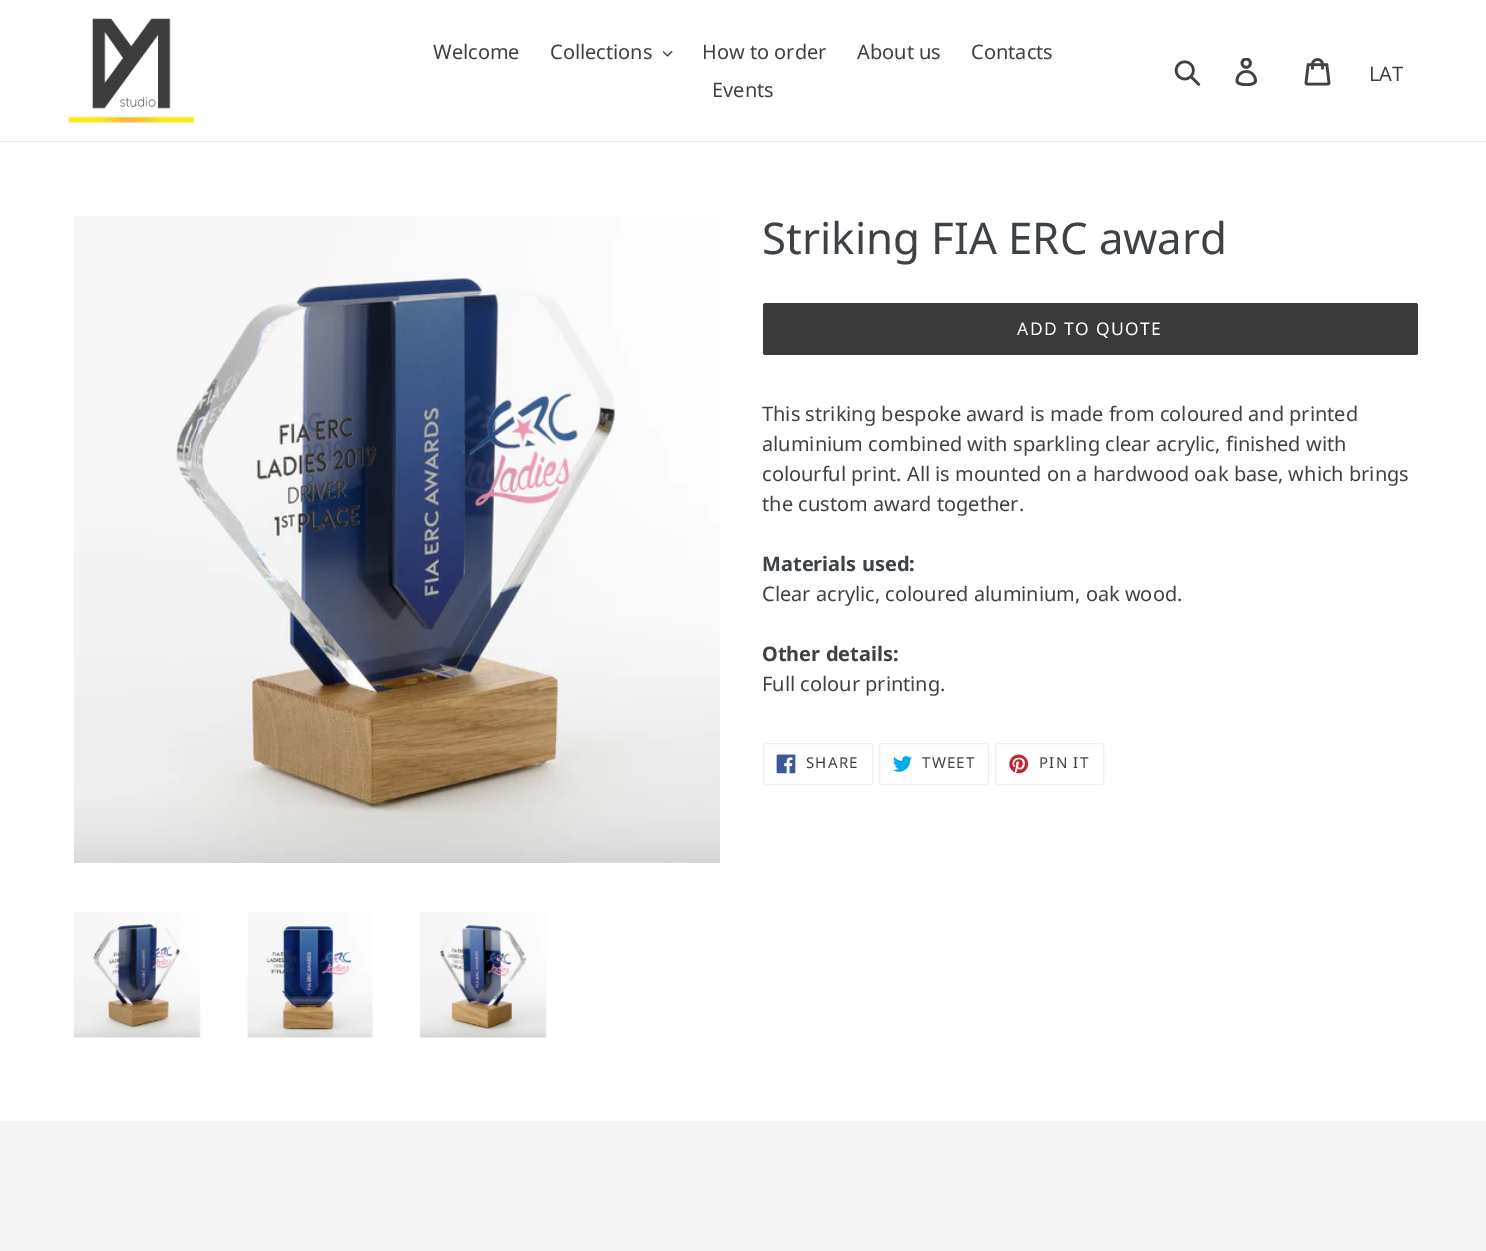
%!PS-Adobe-3.0
%%BoundingBox: 0 0 1486 1251
%%LanguageLevel: 3
%%Pages: 1
%%EndComments
%%BeginProlog
/setink { dup -16 bitshift 255 div exch dup -8 bitshift 255 and 255 div exch 255 and 255 div setrgbcolor } def
/usefont { [ exch dup neg 0 0 3 -1 roll 0 0 ] selectfont } def
/rrect { 5 dict begin { /r /h /w /y /x } { exch def } forall
  x r add y moveto x w add y 2 copy h add r arct x w add y h add x 1 index r arct
  x y h add x y r arct x y 2 copy exch w add exch r arct closepath end } def
/drawimage { 5 dict begin { /h /w /y /x /name } { exch def } forall
  gsave x y translate w h scale
  w h 8 [w 0 0 h 0 0] name (r) file false 3 colorimage grestore end } def
%%EndProlog
%%BeginSetup
<< /PageSize [1486 1251] >> setpagedevice
%%EndSetup
%%Page: 1 1
0 1251 translate 1 -1 scale
4 setmiterlimit
16#FFFFFF setink
0 0 1486 1251 rectfill
16#E8E9EB setink
0 141 1486 1 rectfill
(img1.raw) 68 18 126 105 drawimage
/NotoSans-Regular 20 usefont
16#3D4246 setink
433 59 moveto (Welcome) show
550 59 moveto (Collections) show
(img2.raw) 663 50 10 7 drawimage
[
    [(How to order) 702 59]
    [(About us) 857 59]
    [(Contacts) 971 59]
    [(Events) 712 97]
] { aload pop moveto show } forall
(img3.raw) 1174 60 27 26 drawimage
(img4.raw) 1235 58 23 28 drawimage
(img5.raw) 1304 58 27 28 drawimage
1369 81 moveto (LAT) show
(img6.raw) 74 216 646 647 drawimage
(img7.raw) 73 912 128 126 drawimage
(img8.raw) 247 912 126 126 drawimage
(img9.raw) 419 912 128 127 drawimage
/NotoSans-Regular 43.75 usefont
762 254 moveto (Striking FIA ERC award) show
16#3A3A3A setink
763 303 655 52 2.5 rrect fill
/NotoSans-Regular 17.5 usefont
16#FFFFFF setink
1017 335 moveto 1.4 0 (ADD TO QUOTE) ashow
/NotoSans-Regular 20 usefont
16#3D4246 setink
[
    [(This striking bespoke award is made from coloured and printed) 762 421]
    [(aluminium combined with sparkling clear acrylic, finished with) 762 451]
    [(colourful print. All is mounted on a hardwood oak base, which brings) 762 481]
    [(the custom award together.) 762 511]
] { aload pop moveto show } forall
/NotoSans-Bold 20 usefont
762 571 moveto (Materials used:) show
/NotoSans-Regular 20 usefont
762 601 moveto (Clear acrylic, coloured aluminium, oak wood.) show
/NotoSans-Bold 20 usefont
762 661 moveto (Other details:) show
/NotoSans-Regular 20 usefont
762 691 moveto (Full colour printing.) show
16#F0F0F0 setink
763.5 743.5 109 41 2 rrect stroke
(img10.raw) 776 754 20 20 drawimage
/NotoSans-Regular 15 usefont
16#3D4246 setink
806 768 moveto 1.25 0 (SHARE) ashow
16#F0F0F0 setink
879.5 743.5 109 41 2 rrect stroke
(img11.raw) 893 756 19 16 drawimage
16#3D4246 setink
922 768 moveto 1.25 0 (TWEET) ashow
16#F0F0F0 setink
995.5 743.5 108 41 2 rrect stroke
(img12.raw) 1009 754 20 20 drawimage
16#3D4246 setink
1039 768 moveto 1.25 0 (PIN IT) ashow
16#F5F5F5 setink
0 1121 1486 130 rectfill
showpage
%%EOF
